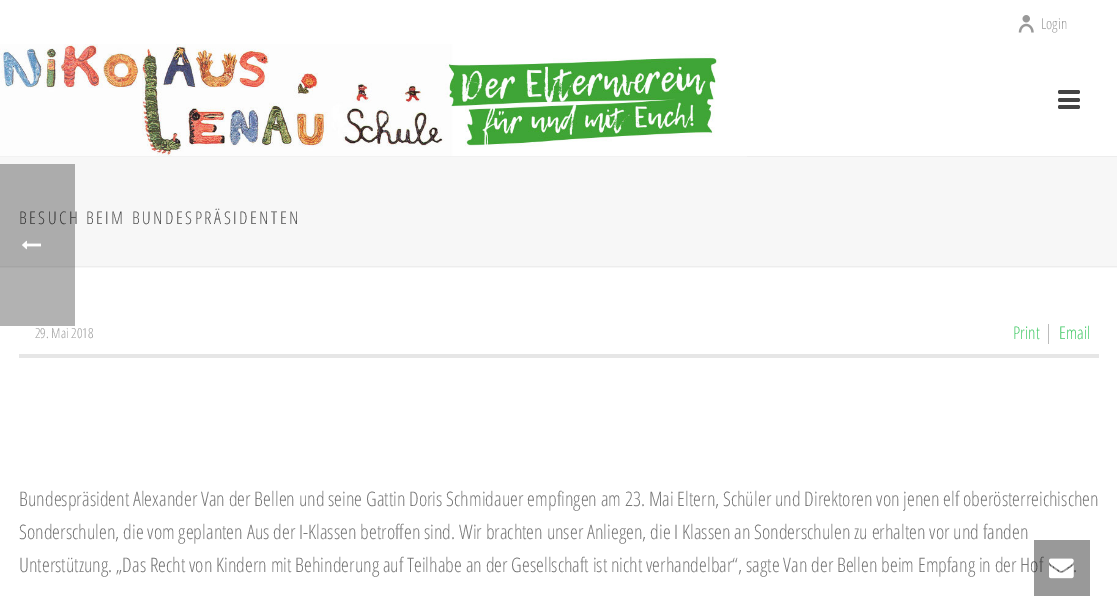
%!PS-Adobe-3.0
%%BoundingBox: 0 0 1117 615
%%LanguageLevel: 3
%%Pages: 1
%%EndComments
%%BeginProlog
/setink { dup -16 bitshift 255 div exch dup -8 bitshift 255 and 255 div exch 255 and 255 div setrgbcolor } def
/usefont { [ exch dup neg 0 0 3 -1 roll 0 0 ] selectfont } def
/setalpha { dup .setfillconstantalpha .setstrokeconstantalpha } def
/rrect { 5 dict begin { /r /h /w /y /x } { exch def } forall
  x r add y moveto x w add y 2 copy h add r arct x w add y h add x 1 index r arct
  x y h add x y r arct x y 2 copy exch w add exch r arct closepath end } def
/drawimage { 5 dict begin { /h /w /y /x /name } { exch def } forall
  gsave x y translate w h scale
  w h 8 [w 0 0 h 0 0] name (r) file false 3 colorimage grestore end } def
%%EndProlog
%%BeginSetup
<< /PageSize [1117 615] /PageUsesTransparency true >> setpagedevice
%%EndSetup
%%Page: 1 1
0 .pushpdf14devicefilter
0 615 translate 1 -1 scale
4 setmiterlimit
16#FFFFFF setink
0 0 1117 615 rectfill
16#F7F7F7 setink
0 157 1117 111 rectfill
16#EDEDED setink
0 266 1117 1 rectfill
(img1.raw) 1018 15 16 18 drawimage
/OpenSansCondensed-Light 15 usefont
16#999999 setink
1041 29 moveto (Login) show
16#EDEDED setink
0 156 1117 1 rectfill
(img2.raw) 0 44 747 113 drawimage
16#444444 setink
1058 90 22 4 2 rrect fill
1058 98 22 4 2 rrect fill
1058 105 22 4 2 rrect fill
/OpenSansCondensed-Light 17.5 usefont
16#4D4D4D setink
19 224 moveto 2.5 0 (BESUCH BEIM BUNDESPRÄSIDENTEN) ashow
16#E6E6E6 setink
19 354 1080 4 rectfill
/OpenSansCondensed-Light 13.75 usefont
16#999999 setink
35 338 moveto (29. Mai 2018) show
16#BCBCBC setink
1048 324 1 20 rectfill
/OpenSansCondensed-Light 17.5 usefont
16#42C966 setink
1013 339 moveto (Print) show
1059 339 moveto (Email) show
/OpenSansCondensed-Light 20 usefont
16#777777 setink
[
    [(Bundespräsident Alexander Van der Bellen und seine Gattin Doris Schmidauer empfingen am 23. Mai Eltern, Schüler und Direktoren von jenen elf oberösterreichischen) 19 506]
    [(Sonderschulen, die vom geplanten Aus der I-Klassen betroffen sind. Wir brachten unser Anliegen, die I Klassen an Sonderschulen zu erhalten vor und fanden) 19 539]
    [(Unterstützung. „Das Recht von Kindern mit Behinderung auf Teilhabe an der Gesellschaft ist nicht verhandelbar“, sagte Van der Bellen beim Empfang in der Hof) 19 572]
    [(.) 1073 572]
] { aload pop moveto show } forall
0.3 setalpha
16#000000 setink
0 164 75 162 rectfill
1 setalpha
(img3.raw) 22 240 19 10 drawimage
0.4 setalpha
1034 540 56 56 rectfill
1 setalpha
(img4.raw) 1049 558 25 21 drawimage
.poppdf14devicefilter showpage
%%EOF
